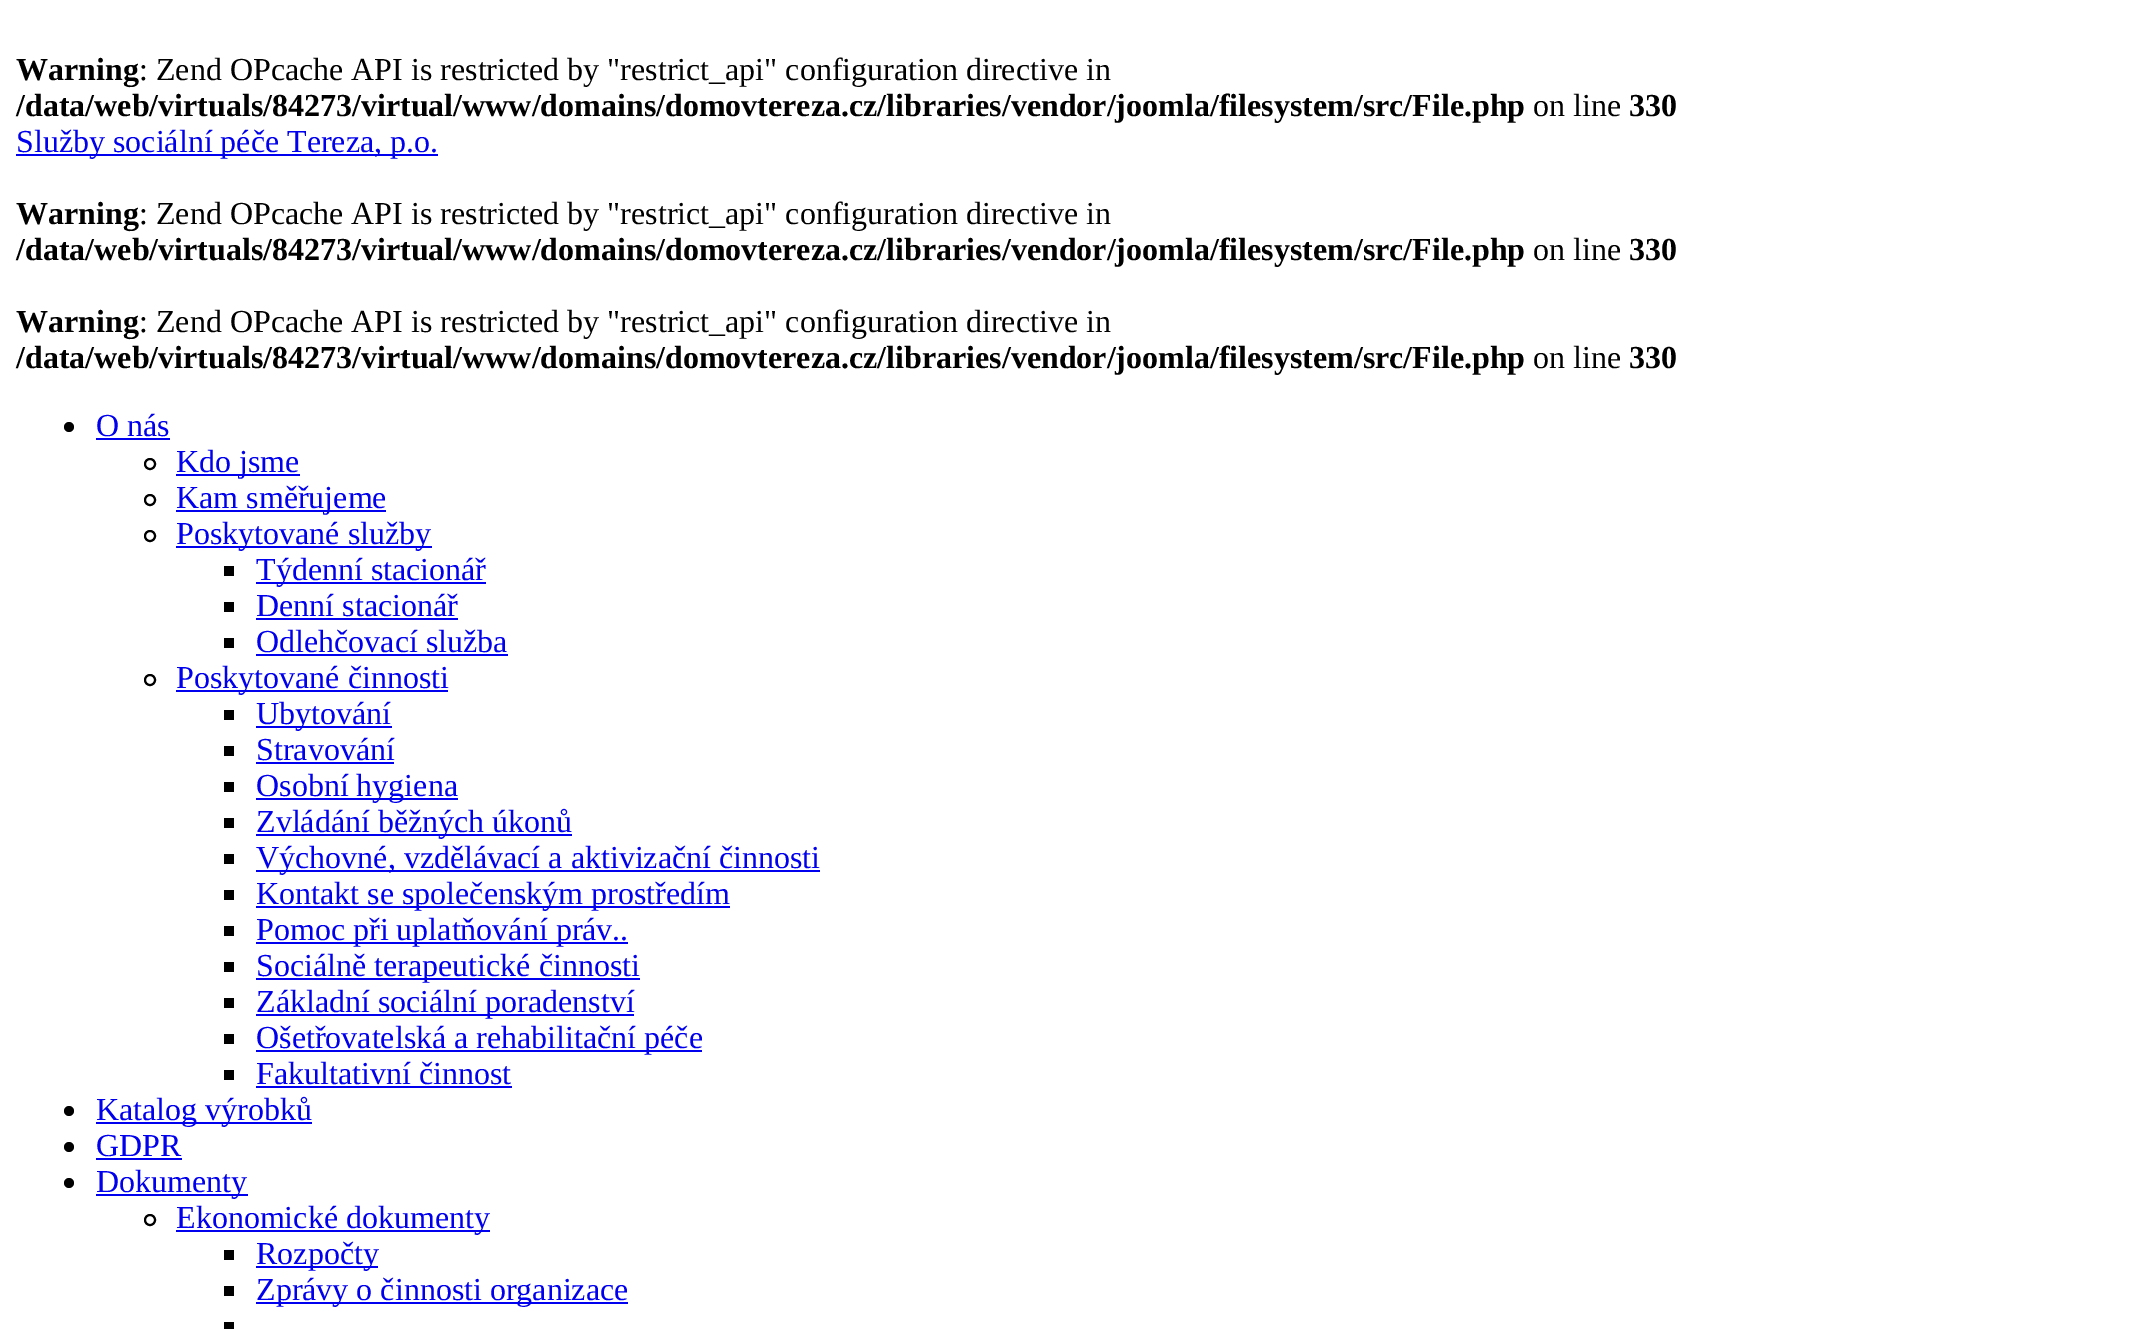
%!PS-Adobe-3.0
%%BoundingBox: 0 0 2154 1329
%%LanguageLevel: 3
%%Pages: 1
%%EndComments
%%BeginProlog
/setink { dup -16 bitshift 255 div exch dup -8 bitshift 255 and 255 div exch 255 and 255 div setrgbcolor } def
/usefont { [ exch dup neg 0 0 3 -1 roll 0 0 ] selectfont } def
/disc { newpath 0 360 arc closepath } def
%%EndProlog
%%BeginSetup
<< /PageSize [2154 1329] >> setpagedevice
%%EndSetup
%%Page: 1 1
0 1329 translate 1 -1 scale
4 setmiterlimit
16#FFFFFF setink
0 0 2154 1329 rectfill
/LiberationSerif-Bold 32 usefont
16#000000 setink
16 80 moveto (Warning) show
/LiberationSerif-Regular 32 usefont
139 80 moveto (: Zend OPcache API is restricted by "restrict_api" configuration directive in) show
/LiberationSerif-Bold 32 usefont
16 116 moveto (/data/web/virtuals/84273/virtual/www/domains/domovtereza.cz/libraries/vendor/joomla/filesystem/src/File.php) show
/LiberationSerif-Regular 32 usefont
1533 116 moveto (on line) show
/LiberationSerif-Bold 32 usefont
1629 116 moveto (330) show
16#0000EE setink
16 154 422 2 rectfill
/LiberationSerif-Regular 32 usefont
16 152 moveto (Služby sociální péče Tereza, p.o.) show
/LiberationSerif-Bold 32 usefont
16#000000 setink
16 224 moveto (Warning) show
/LiberationSerif-Regular 32 usefont
139 224 moveto (: Zend OPcache API is restricted by "restrict_api" configuration directive in) show
/LiberationSerif-Bold 32 usefont
16 260 moveto (/data/web/virtuals/84273/virtual/www/domains/domovtereza.cz/libraries/vendor/joomla/filesystem/src/File.php) show
/LiberationSerif-Regular 32 usefont
1533 260 moveto (on line) show
/LiberationSerif-Bold 32 usefont
1629 260 moveto (330) show
16 332 moveto (Warning) show
/LiberationSerif-Regular 32 usefont
139 332 moveto (: Zend OPcache API is restricted by "restrict_api" configuration directive in) show
/LiberationSerif-Bold 32 usefont
16 368 moveto (/data/web/virtuals/84273/virtual/www/domains/domovtereza.cz/libraries/vendor/joomla/filesystem/src/File.php) show
/LiberationSerif-Regular 32 usefont
1533 368 moveto (on line) show
/LiberationSerif-Bold 32 usefont
1629 368 moveto (330) show
69 427 5 disc fill
/LiberationSerif-Regular 32 usefont
16#0000EE setink
96 436 moveto (O nás) show
96 438 74 2 rectfill
16#000000 setink
2 setlinewidth
150 464 5 disc stroke
16#0000EE setink
176 474 124 2 rectfill
176 472 moveto (Kdo jsme) show
16#000000 setink
150 500 5 disc stroke
16#0000EE setink
176 510 210 2 rectfill
176 508 moveto (Kam směřujeme) show
16#000000 setink
150 536 5 disc stroke
16#0000EE setink
176 546 256 2 rectfill
176 544 moveto (Poskytované služby) show
16#000000 setink
224 566 10 10 rectfill
16#0000EE setink
256 582 230 2 rectfill
256 580 moveto (Týdenní stacionář) show
16#000000 setink
224 602 10 10 rectfill
16#0000EE setink
256 616 moveto (Denní stacionář) show
256 618 202 2 rectfill
16#000000 setink
224 638 10 10 rectfill
16#0000EE setink
256 652 moveto (Odlehčovací služba) show
256 654 252 2 rectfill
16#000000 setink
150 680 5 disc stroke
16#0000EE setink
176 690 272 2 rectfill
176 688 moveto (Poskytované činnosti) show
16#000000 setink
224 710 10 10 rectfill
16#0000EE setink
256 726 136 2 rectfill
256 724 moveto (Ubytování) show
16#000000 setink
224 746 10 10 rectfill
16#0000EE setink
256 760 moveto (Stravování) show
[
    [256 762 138 2 16#0000EE]
    [224 782 10 10 16#000000]
    [256 798 202 2 16#0000EE]
] { aload pop setink rectfill } forall
256 796 moveto (Osobní hygiena) show
16#000000 setink
224 818 10 10 rectfill
16#0000EE setink
256 834 316 2 rectfill
256 832 moveto (Zvládání běžných úkonů) show
16#000000 setink
224 854 10 10 rectfill
16#0000EE setink
256 870 564 2 rectfill
256 868 moveto (Výchovné, vzdělávací a aktivizační činnosti) show
16#000000 setink
224 890 10 10 rectfill
16#0000EE setink
256 906 474 2 rectfill
256 904 moveto (Kontakt se společenským prostředím) show
16#000000 setink
224 926 10 10 rectfill
16#0000EE setink
256 942 372 2 rectfill
256 940 moveto (Pomoc při uplatňování práv..) show
16#000000 setink
224 962 10 10 rectfill
16#0000EE setink
256 978 384 2 rectfill
256 976 moveto (Sociálně terapeutické činnosti) show
16#000000 setink
224 998 10 10 rectfill
16#0000EE setink
256 1014 378 2 rectfill
256 1012 moveto (Základní sociální poradenství) show
16#000000 setink
224 1034 10 10 rectfill
16#0000EE setink
256 1050 446 2 rectfill
256 1048 moveto (Ošetřovatelská a rehabilitační péče) show
16#000000 setink
224 1070 10 10 rectfill
16#0000EE setink
256 1084 moveto (Fakultativní činnost) show
256 1086 256 2 rectfill
16#000000 setink
69 1111 5 disc fill
16#0000EE setink
96 1122 216 2 rectfill
96 1120 moveto (Katalog výrobků) show
16#000000 setink
69 1147 5 disc fill
16#0000EE setink
96 1156 moveto (GDPR) show
96 1158 86 2 rectfill
16#000000 setink
69 1183 5 disc fill
16#0000EE setink
96 1194 152 2 rectfill
96 1192 moveto (Dokumenty) show
16#000000 setink
150 1220 5 disc stroke
16#0000EE setink
176 1230 314 2 rectfill
176 1228 moveto (Ekonomické dokumenty) show
16#000000 setink
224 1250 10 10 rectfill
16#0000EE setink
256 1266 122 2 rectfill
256 1264 moveto (Rozpočty) show
16#000000 setink
224 1286 10 10 rectfill
16#0000EE setink
256 1302 372 2 rectfill
256 1300 moveto (Zprávy o činnosti organizace) show
16#000000 setink
224 1322 10 7 rectfill
showpage
%%EOF
